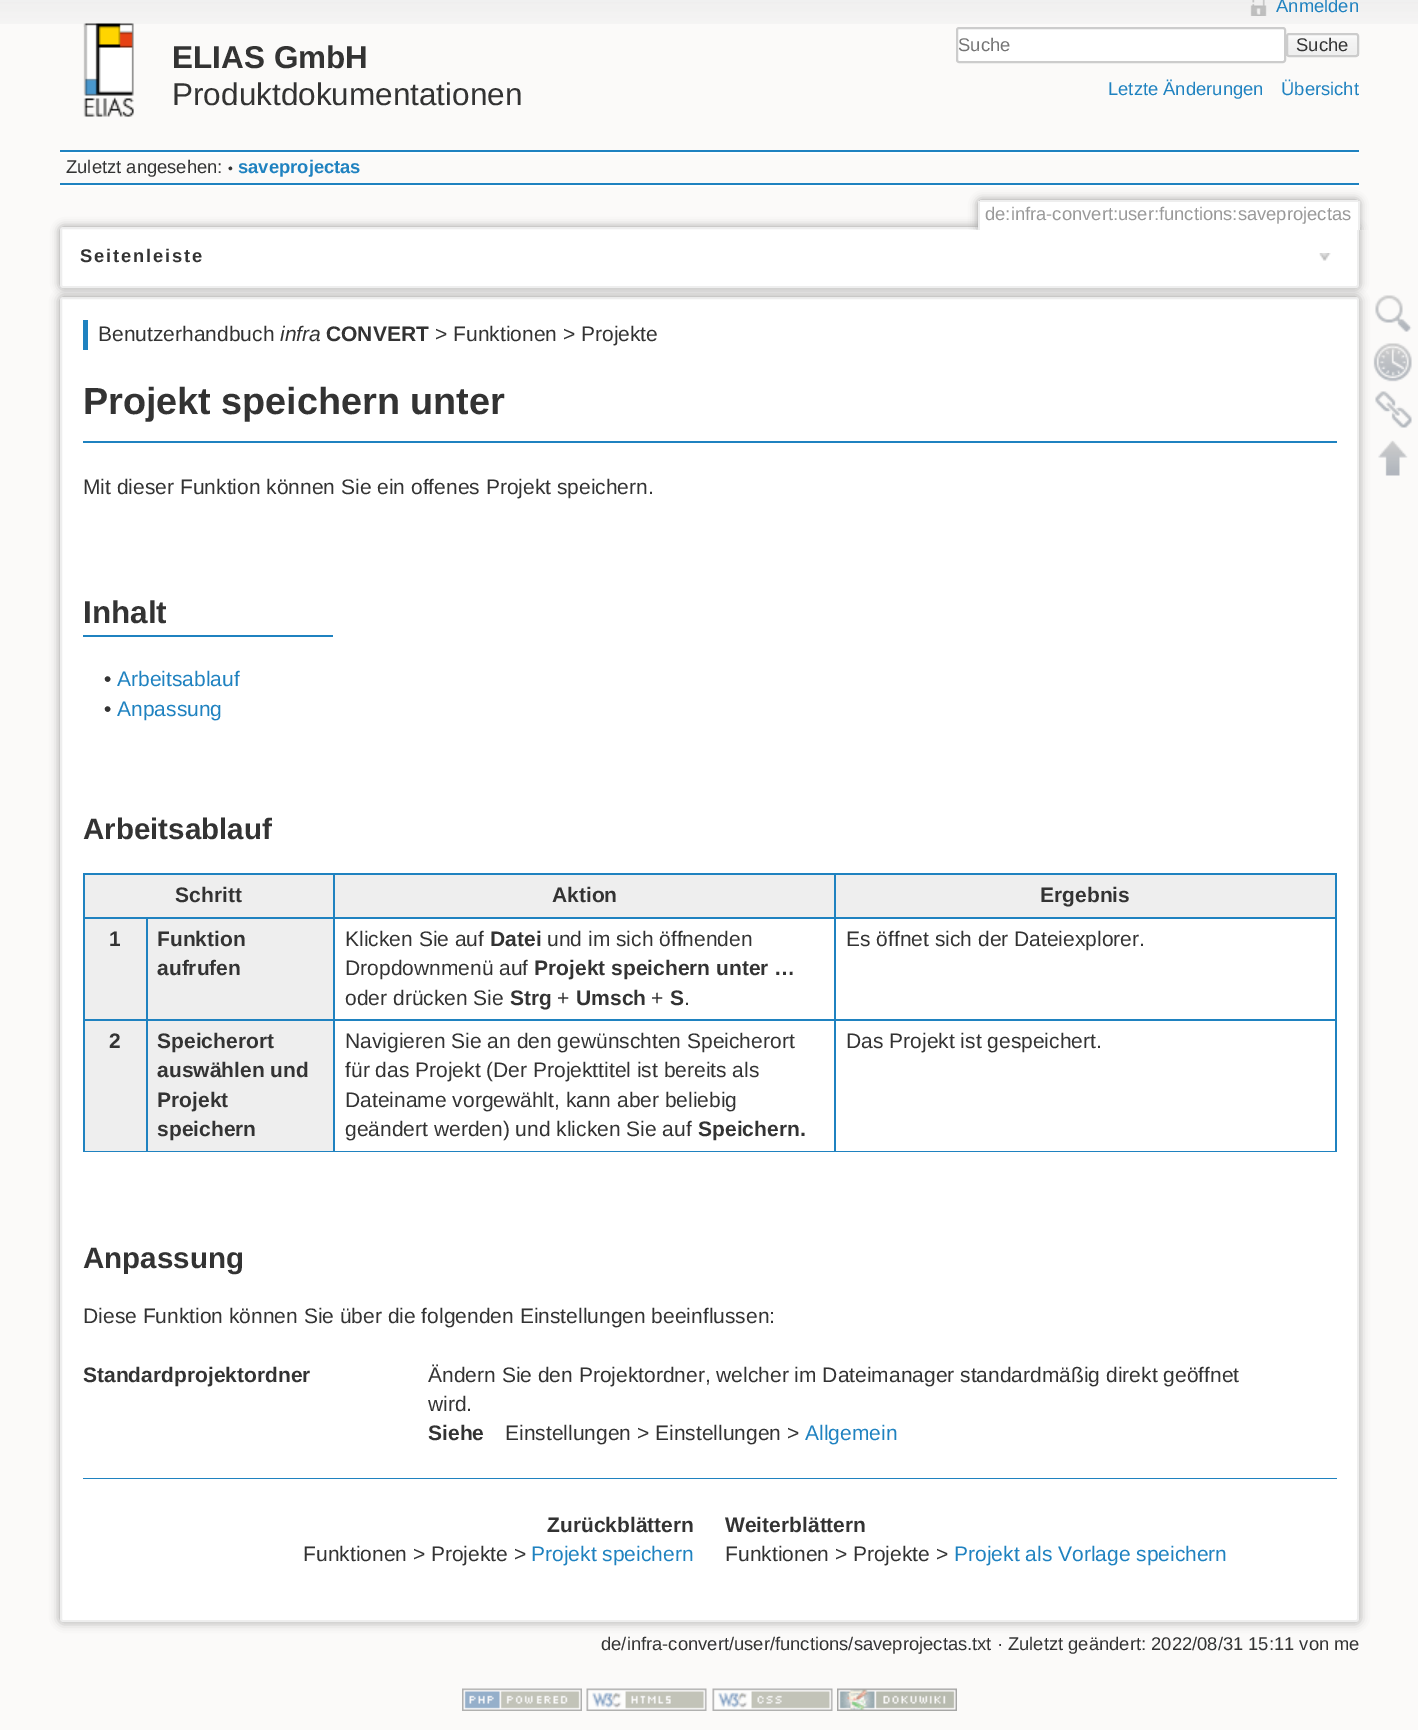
%!PS-Adobe-3.0
%%BoundingBox: 0 0 1418 1730
%%LanguageLevel: 3
%%Pages: 1
%%EndComments
%%BeginProlog
/setink { dup -16 bitshift 255 div exch dup -8 bitshift 255 and 255 div exch 255 and 255 div setrgbcolor } def
/usefont { [ exch dup neg 0 0 3 -1 roll 0 0 ] selectfont } def
/setalpha { dup .setfillconstantalpha .setstrokeconstantalpha } def
/rrect { 5 dict begin { /r /h /w /y /x } { exch def } forall
  x r add y moveto x w add y 2 copy h add r arct x w add y h add x 1 index r arct
  x y h add x y r arct x y 2 copy exch w add exch r arct closepath end } def
/softshadow { 12 dict begin { /a /b /q /h /w /y /x } { exch def } forall gsave /was 0 def
  9 -2 -9 { dup b mul 4 div /e exch def 1 sub .425 mul 2.718 exch exp 1 add a .99 .min exch div /now exch def
    1 1 now sub 1 was sub div sub setalpha /was now def
    w h .min e 2 mul add 0 gt { x e sub y e sub w e 2 mul add h e 2 mul add
      q e add b .6 mul add w h .min 2 div e add .min 0 .max rrect fill } if } for grestore end } def
/drawimage { 5 dict begin { /h /w /y /x /name } { exch def } forall
  gsave x y translate w h scale
  w h 8 [w 0 0 h 0 0] name (r) file false 3 colorimage grestore end } def
%%EndProlog
%%BeginSetup
<< /PageSize [1418 1730] /PageUsesTransparency true >> setpagedevice
%%EndSetup
%%Page: 1 1
0 .pushpdf14devicefilter
0 1730 translate 1 -1 scale
4 setmiterlimit
16#FBFAF9 setink
0 0 1418 1730 rectfill
(img1.raw) 0 0 1418 24 drawimage
(img2.raw) 83 23 51 94 drawimage
/LiberationSans-Bold 31.5 usefont
16#333333 setink
172 68 moveto (ELIAS GmbH) show
/LiberationSans-Regular 31.5 usefont
172 105 moveto (Produktdokumentationen) show
(img3.raw) 1250 0 17 16 drawimage
/LiberationSans-Regular 18.4 usefont
16#1F82C0 setink
1276 12 moveto (Anmelden) show
16#FFFFFF setink
957 28 328 34 2 rrect gsave fill grestore
16#CCCCCC setink
2 setlinewidth
stroke
16#757575 setink
958 51 moveto (Suche) show
gsave
1286 33 73 24 3 rrect clip newpath
gsave 1286 35 moveto 1359 35 lineto 1359 56 lineto 1286 56 lineto closepath clip newpath
<< /ShadingType 2 /ColorSpace /DeviceRGB /Coords [1322 34 1322 56] /Extend [true true] /Function << /FunctionType 3 /Domain [0 1] /Functions [<< /FunctionType 2 /Domain [0 1] /C0 [1 1 1] /C1 [0.957 0.957 0.957] /N 1 >> << /FunctionType 2 /Domain [0 1] /C0 [0.957 0.957 0.957] /C1 [0.933 0.933 0.933] /N 1 >> << /FunctionType 2 /Domain [0 1] /C0 [0.8 0.8 0.8] /C1 [0.8 0.8 0.8] /N 1 >>] /Bounds [0.3 0.99] /Encode [0 1 0 1 0 1] >> >> shfill grestore
grestore
16#CCCCCC setink
1287 34 71 22 2 rrect stroke
16#333333 setink
1296 51 moveto (Suche) show
16#1F82C0 setink
1108 95 moveto (Letzte Änderungen) show
1281 95 moveto (Übersicht) show
[
    [60 150 1299 2 16#1F82C0]
    [60 185 1299 2 16#FFFFFF]
    [60 152 1299 2 16#FFFFFF]
    [60 183 1299 2 16#1F82C0]
] { aload pop setink rectfill } forall
16#333333 setink
66 173 moveto (Zuletzt angesehen:) show
/LiberationSans-Regular 14 usefont
228 173 moveto (•) show
/LiberationSans-Bold 18.4 usefont
16#1F82C0 setink
238 173 moveto (saveprojectas) show
16#999999 setink
60 297 1299 1325 3 5 1 softshadow
16#FFFFFF setink
61 298 1297 1323 2 rrect gsave fill grestore
16#EEEEEE setink
stroke
16#999999 setink
60 227 1299 61 3 4.5 1 softshadow
16#FFFFFF setink
61 228 1297 59 2 rrect gsave fill grestore
16#EEEEEE setink
stroke
gsave
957 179 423 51 rectclip
16#999999 setink
978 200 381 30 3 4.5 1 softshadow
grestore
[
    [980 202 378 28 16#FFFFFF]
    [980 200 378 2 16#EEEEEE]
    [1358 201 2 29 16#EEEEEE]
    [978 201 2 29 16#EEEEEE]
] { aload pop setink rectfill } forall
/LiberationSans-Regular 18.4 usefont
16#999999 setink
985 220 moveto (de:infra-convert:user:functions:saveprojectas) show
16#1F82C0 setink
83 320 5 30 rectfill
/LiberationSans-Regular 21 usefont
16#333333 setink
98 341 moveto (Benutzerhandbuch) show
/LiberationSans-Italic 21 usefont
280 341 moveto (infra) show
/LiberationSans-Bold 21 usefont
326 341 moveto (CONVERT) show
/LiberationSans-Regular 21 usefont
435 341 moveto (> Funktionen > Projekte) show
/LiberationSans-Bold 37.75 usefont
83 414 moveto (Projekt speichern unter) show
16#1F82C0 setink
83 441 1254 2 rectfill
/LiberationSans-Regular 21 usefont
16#333333 setink
83 494 moveto (Mit dieser Funktion können Sie ein offenes Projekt speichern.) show
16#1F82C0 setink
83 635 250 2 rectfill
/LiberationSans-Bold 31.5 usefont
16#333333 setink
83 623 moveto (Inhalt) show
/LiberationSans-Regular 21 usefont
104 686 moveto (•) show
16#1F82C0 setink
117 686 moveto (Arbeitsablauf) show
16#333333 setink
104 716 moveto (•) show
16#1F82C0 setink
117 716 moveto (Anpassung) show
/LiberationSans-Bold 29.5 usefont
16#333333 setink
83 839 moveto (Arbeitsablauf) show
[
    [83 873 1254 2 16#1F82C0]
    [1335 873 2 279 16#1F82C0]
    [83 1151 1254 1 16#1F82C0]
    [83 873 2 279 16#1F82C0]
    [85 875 248 42 16#EEEEEE]
] { aload pop setink rectfill } forall
/LiberationSans-Bold 21 usefont
16#333333 setink
175 902 moveto (Schritt) show
[
    [335 875 499 42 16#EEEEEE]
    [834 917 503 2 16#1F82C0]
    [834 1019 503 2 16#1F82C0]
    [834 1019 2 133 16#1F82C0]
    [333 1019 503 2 16#1F82C0]
    [834 917 2 103 16#1F82C0]
    [333 917 503 2 16#1F82C0]
    [333 1019 2 133 16#1F82C0]
    [146 1019 189 2 16#1F82C0]
    [333 917 2 103 16#1F82C0]
    [146 917 189 2 16#1F82C0]
    [333 873 2 45 16#1F82C0]
] { aload pop setink rectfill } forall
16#333333 setink
552 902 moveto (Aktion) show
16#EEEEEE setink
836 875 499 42 rectfill
16#1F82C0 setink
834 873 2 45 rectfill
16#333333 setink
1040 902 moveto (Ergebnis) show
[
    [85 919 61 100 16#EEEEEE]
    [146 1019 2 133 16#1F82C0]
    [83 1019 64 2 16#1F82C0]
    [146 917 2 103 16#1F82C0]
    [83 917 64 2 16#1F82C0]
] { aload pop setink rectfill } forall
16#333333 setink
109 946 moveto (1) show
16#EEEEEE setink
148 919 185 100 rectfill
16#333333 setink
157 946 moveto (Funktion) show
157 975 moveto (aufrufen) show
/LiberationSans-Regular 21 usefont
345 946 moveto (Klicken Sie auf) show
/LiberationSans-Bold 21 usefont
490 946 moveto (Datei) show
/LiberationSans-Regular 21 usefont
547 946 moveto (und im sich öffnenden) show
345 975 moveto (Dropdownmenü auf) show
/LiberationSans-Bold 21 usefont
534 975 moveto (Projekt speichern unter …) show
/LiberationSans-Regular 21 usefont
345 1005 moveto (oder drücken Sie) show
/LiberationSans-Bold 21 usefont
510 1005 moveto (Strg) show
/LiberationSans-Regular 21 usefont
557 1005 moveto (+) show
/LiberationSans-Bold 21 usefont
576 1005 moveto (Umsch) show
/LiberationSans-Regular 21 usefont
651 1005 moveto (+) show
/LiberationSans-Bold 21 usefont
670 1005 moveto (S) show
/LiberationSans-Regular 21 usefont
684 1005 moveto (.) show
846 946 moveto (Es öffnet sich der Dateiexplorer.) show
16#EEEEEE setink
85 1021 61 130 rectfill
/LiberationSans-Bold 21 usefont
16#333333 setink
109 1048 moveto (2) show
16#EEEEEE setink
148 1021 185 130 rectfill
16#333333 setink
[
    [(Speicherort) 157 1048]
    [(auswählen und) 157 1077]
    [(Projekt) 157 1107]
    [(speichern) 157 1136]
] { aload pop moveto show } forall
/LiberationSans-Regular 21 usefont
[
    [(Navigieren Sie an den gewünschten Speicherort) 345 1048]
    [(für das Projekt \(Der Projekttitel ist bereits als) 345 1077]
    [(Dateiname vorgewählt, kann aber beliebig) 345 1107]
    [(geändert werden\) und klicken Sie auf) 345 1136]
] { aload pop moveto show } forall
/LiberationSans-Bold 21 usefont
698 1136 moveto (Speichern.) show
/LiberationSans-Regular 21 usefont
846 1048 moveto (Das Projekt ist gespeichert.) show
/LiberationSans-Bold 29.5 usefont
83 1268 moveto (Anpassung) show
/LiberationSans-Regular 21 usefont
83 1323 moveto (Diese Funktion können Sie über die folgenden Einstellungen beeinflussen:) show
/LiberationSans-Bold 21 usefont
83 1382 moveto (Standardprojektordner) show
/LiberationSans-Regular 21 usefont
428 1382 moveto (Ändern Sie den Projektordner, welcher im Dateimanager standardmäßig direkt geöffnet) show
428 1411 moveto (wird.) show
/LiberationSans-Bold 21 usefont
428 1440 moveto (Siehe) show
/LiberationSans-Regular 21 usefont
505 1440 moveto (Einstellungen > Einstellungen >) show
16#1F82C0 setink
805 1440 moveto (Allgemein) show
83 1478 1254 1 rectfill
/LiberationSans-Bold 21 usefont
16#333333 setink
547 1532 moveto (Zurückblättern) show
/LiberationSans-Regular 21 usefont
303 1561 moveto (Funktionen > Projekte >) show
16#1F82C0 setink
531 1561 moveto (Projekt speichern) show
/LiberationSans-Bold 21 usefont
16#333333 setink
725 1532 moveto (Weiterblättern) show
/LiberationSans-Regular 21 usefont
725 1561 moveto (Funktionen > Projekte >) show
16#1F82C0 setink
954 1561 moveto (Projekt als Vorlage speichern) show
/LiberationSans-Regular 18.4 usefont
16#333333 setink
601 1650 moveto (de/infra-convert/user/functions/saveprojectas.txt · Zuletzt geändert: 2022/08/31 15:11 von me) show
/LiberationSans-Bold 18.4 usefont
80 262 moveto 1.8 0 (Seitenleiste) ashow
(img4.raw) 1319 253 12 8 drawimage
(img5.raw) 1375 295 37 37 drawimage
(img6.raw) 1373 343 39 39 drawimage
(img7.raw) 1375 391 37 37 drawimage
(img8.raw) 1378 440 30 36 drawimage
(img9.raw) 462 1688 120 23 drawimage
(img10.raw) 586 1688 121 23 drawimage
(img11.raw) 712 1688 121 23 drawimage
(img12.raw) 837 1688 120 23 drawimage
.poppdf14devicefilter showpage
%%EOF
